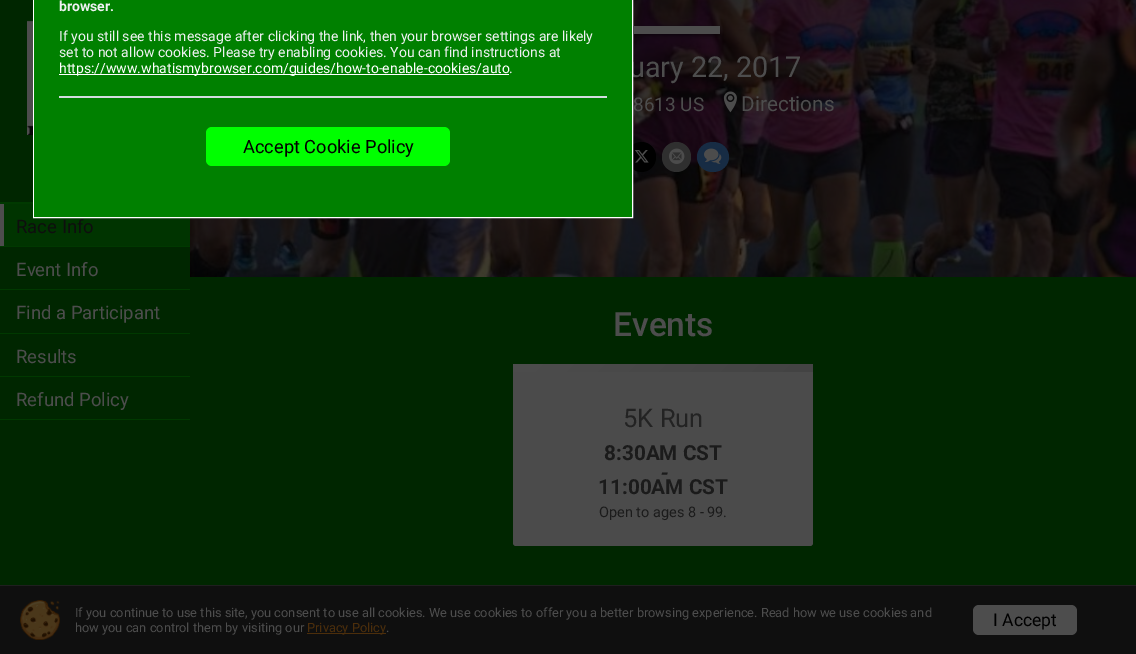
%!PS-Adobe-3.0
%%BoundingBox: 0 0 1136 654
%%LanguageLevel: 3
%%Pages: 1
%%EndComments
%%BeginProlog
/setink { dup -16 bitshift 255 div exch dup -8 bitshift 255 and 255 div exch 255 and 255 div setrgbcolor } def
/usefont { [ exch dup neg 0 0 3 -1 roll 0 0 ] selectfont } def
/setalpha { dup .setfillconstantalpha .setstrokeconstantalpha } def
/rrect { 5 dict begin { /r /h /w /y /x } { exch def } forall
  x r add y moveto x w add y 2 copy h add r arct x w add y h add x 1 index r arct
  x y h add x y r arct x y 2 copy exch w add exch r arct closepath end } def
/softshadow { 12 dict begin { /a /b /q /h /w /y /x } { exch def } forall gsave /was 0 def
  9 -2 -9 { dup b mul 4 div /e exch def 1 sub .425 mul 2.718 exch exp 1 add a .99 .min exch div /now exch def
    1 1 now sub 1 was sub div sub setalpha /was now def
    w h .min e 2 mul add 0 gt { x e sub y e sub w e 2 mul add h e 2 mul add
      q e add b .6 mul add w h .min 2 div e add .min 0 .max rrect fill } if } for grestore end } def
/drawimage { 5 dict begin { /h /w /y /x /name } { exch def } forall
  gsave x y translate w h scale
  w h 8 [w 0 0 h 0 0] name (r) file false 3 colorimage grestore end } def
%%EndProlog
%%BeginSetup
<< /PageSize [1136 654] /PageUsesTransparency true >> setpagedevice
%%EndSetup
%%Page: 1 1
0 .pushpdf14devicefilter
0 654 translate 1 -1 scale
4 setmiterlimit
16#002600 setink
0 0 1136 654 rectfill
(img1.raw) 190 0 946 277 drawimage
(img2.raw) 633 0 503 180 drawimage
16#000000 setink
607 28 113 8 0 2 0.5 softshadow
/Roboto-Regular 28.75 usefont
16#4D4D4D setink
629 77 moveto (uary 22, 2017) show
16#000000 setink
627 142 29 30 14.5 rrect fill
16#003400 setink
4 204 186 42 rectfill
16#FFFFFF setink
33.5 -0.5 599 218 rectstroke
16#008000 setink
34 0 598 217 rectfill
/Roboto-Bold 14 usefont
16#EEF1F1 setink
59 11 moveto (browser.) show
/Roboto-Regular 14 usefont
59 41 moveto (If you still see this message after clicking the link, then your browser settings are likely) show
59 57 moveto (set to not allow cookies. Please try enabling cookies. You can find instructions at) show
16#FFFFFF setink
59 74 450 1 rectfill
59 73 moveto (https://www.whatismybrowser.com/guides/how-to-enable-cookies/auto) show
16#EEF1F1 setink
509 73 moveto (.) show
16#D3DBDF setink
59 96 548 2 rectfill
16#00FF00 setink
206 127 244 39 6 rrect fill
/Roboto-Regular 18.25 usefont
16#000000 setink
243 153 moveto (Accept Cookie Policy) show
16#4D4D4D setink
633 26 87 8 rectfill
/Roboto-Regular 19 usefont
633 111 moveto (8613 US) show
(img3.raw) 723 91 14 22 drawimage
/Roboto-Regular 20.75 usefont
741 111 moveto (Directions) show
(img4.raw) 635 150 14 13 drawimage
16#2F2F2F setink
662 142 29 30 14.5 rrect fill
(img5.raw) 669 148 16 16 drawimage
16#172C44 setink
713 142 moveto 722 142 729 148.5 729 157 curveto 729 165.5 722 172 713 172 curveto 704 172 697 165.5 697 157 curveto 697 148.5 704 142 713 142 curveto closepath fill
(img6.raw) 704 148 18 16 drawimage
(img7.raw) 27 20 6 115 drawimage
16#003900 setink
0 202 33 2 rectfill
16#4D4D4D setink
0 204 4 42 rectfill
/Roboto-Regular 18.5 usefont
16#0E0E0E setink
16 233 moveto (Race Info) show
16#003900 setink
0 246 190 1 rectfill
16#4D4D4D setink
16 276 moveto (Event Info) show
16#003900 setink
0 289 190 1 rectfill
16#4D4D4D setink
16 319 moveto (Find a Participant) show
16#003900 setink
0 333 190 1 rectfill
16#4D4D4D setink
16 363 moveto (Results) show
16#003900 setink
0 376 190 1 rectfill
0 419 190 1 rectfill
16#4D4D4D setink
16 406 moveto (Refund Policy) show
/Roboto-Medium 33.5 usefont
613 336 moveto (Events) show
16#4B4B4B setink
513 364 300 182 3 rrect fill
gsave 516 364 moveto 810 364 lineto 811.5 364 813 365.5 813 367 curveto 813 372 lineto 513 372 lineto 513 367 lineto 513 365.5 514.5 364 516 364 curveto closepath clip newpath
<< /ShadingType 2 /ColorSpace /DeviceRGB /Coords [740 445 586 291] /Extend [true true] /Function << /FunctionType 2 /Domain [0 1] /C0 [0.263 0.263 0.263] /C1 [0.302 0.302 0.302] /N 1 >> >> shfill grestore
/Roboto-Regular 25.5 usefont
16#232323 setink
623 427 moveto (5K Run) show
/Roboto-Bold 20.75 usefont
16#1B1B1B setink
604 460 moveto (8:30AM CST) show
/Roboto-BoldItalic 20.75 usefont
659 480 moveto (-) show
/Roboto-Bold 20.75 usefont
598 494 moveto (11:00AM CST) show
/Roboto-Regular 14.5 usefont
599 517 moveto (Open to ages 8 - 99.) show
16#0F0F0F setink
0 586 1136 68 rectfill
16#1F1F1F setink
0 585 1136 1 rectfill
(img8.raw) 20 600 40 40 drawimage
/Roboto-Regular 12.8 usefont
16#4D4D4D setink
75 617 moveto (If you continue to use this site, you consent to use all cookies. We use cookies to offer you a better browsing experience. Read how we use cookies and) show
75 632 moveto (how you can control them by visiting our) show
16#4C2E0B setink
307 633 79 1 rectfill
307 632 moveto (Privacy Policy) show
16#4D4D4D setink
386 632 moveto (.) show
973 605 104 30 6 rrect fill
/Roboto-Regular 17.5 usefont
16#000000 setink
993 626 moveto (I Accept) show
.poppdf14devicefilter showpage
%%EOF
